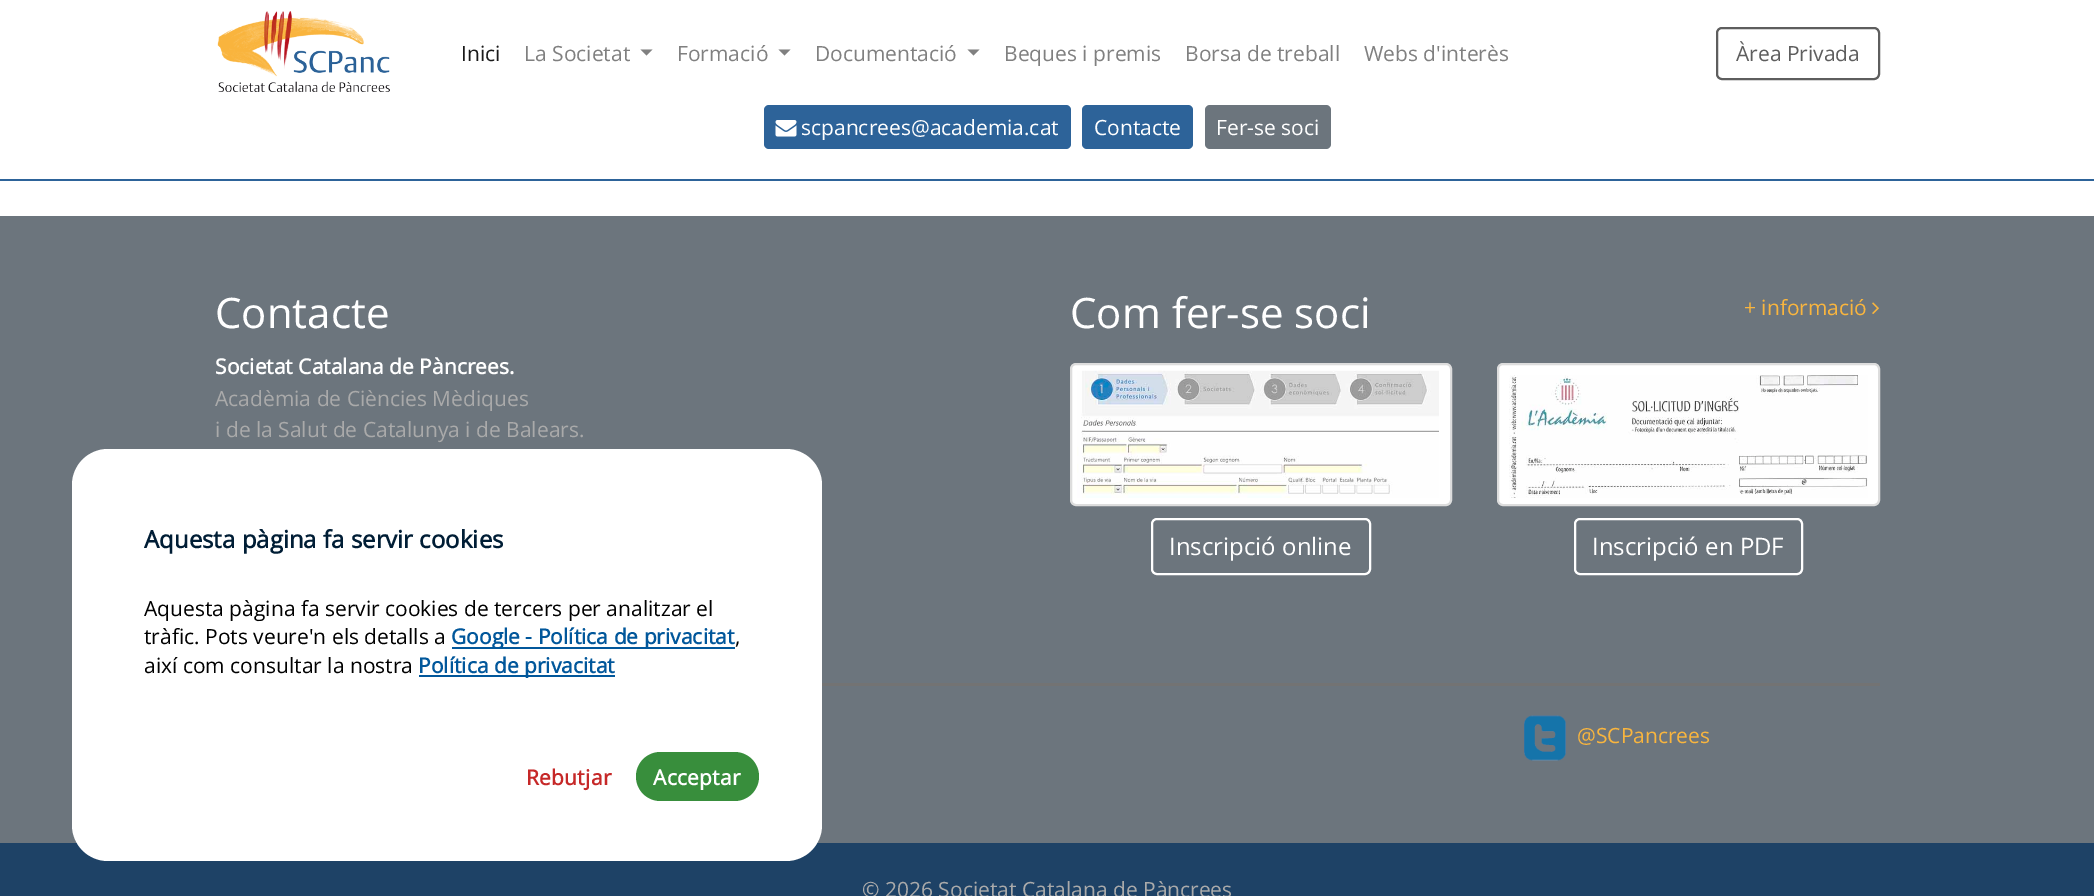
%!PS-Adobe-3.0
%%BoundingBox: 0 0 2094 896
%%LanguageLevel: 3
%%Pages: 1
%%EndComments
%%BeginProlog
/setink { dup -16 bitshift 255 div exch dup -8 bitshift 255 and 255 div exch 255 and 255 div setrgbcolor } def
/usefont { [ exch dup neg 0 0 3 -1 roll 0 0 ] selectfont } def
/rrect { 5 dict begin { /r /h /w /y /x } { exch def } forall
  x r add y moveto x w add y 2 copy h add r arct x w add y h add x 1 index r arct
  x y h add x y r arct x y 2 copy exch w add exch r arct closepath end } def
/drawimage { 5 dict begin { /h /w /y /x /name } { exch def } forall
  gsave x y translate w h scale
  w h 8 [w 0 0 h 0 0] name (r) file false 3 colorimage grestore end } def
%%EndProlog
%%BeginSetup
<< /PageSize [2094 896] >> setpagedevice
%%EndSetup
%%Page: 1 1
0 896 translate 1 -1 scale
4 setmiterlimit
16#FFFFFF setink
0 0 2094 896 rectfill
16#2D6399 setink
0 179 2094 2 rectfill
(img1.raw) 217 11 173 82 drawimage
/OpenSans-Regular 21 usefont
16#1A1A1A setink
461 61 moveto (Inici) show
16#808080 setink
524 61 moveto (La Societat) show
640.5 49.5 moveto 652.5 49.5 lineto 646.5 55.5 lineto closepath fill
677 61 moveto (Formació) show
778.5 49.5 moveto 790.5 49.5 lineto 784.5 55.5 lineto closepath fill
815 61 moveto (Documentació) show
967.5 49.5 moveto 979.5 49.5 lineto 973.5 55.5 lineto closepath fill
[
    [(Beques i premis) 1004 61]
    [(Borsa de treball) 1185 61]
    [(Webs d'interès) 1364 61]
] { aload pop moveto show } forall
16#5E5E5E setink
2 setlinewidth
1717 28 162 51 5 rrect stroke
1736 61 moveto (Àrea Privada) show
16#2D6399 setink
764 105 307 44 5 rrect fill
(img2.raw) 775 120 22 17 drawimage
16#FFFFFF setink
801 135 moveto (scpancrees@academia.cat) show
16#2D6399 setink
1082 105 111 44 5 rrect fill
16#FFFFFF setink
1094 135 moveto (Contacte) show
16#6C757D setink
1205 105 126 44 5 rrect fill
16#FFFFFF setink
1216 135 moveto (Fer-se soci) show
16#6C757D setink
0 216 2094 627 rectfill
/OpenSans-Regular 42 usefont
16#FFFFFF setink
215 328 moveto (Contacte) show
/OpenSans-Bold 21 usefont
215 374 moveto (Societat Catalana de Pàncrees.) show
/OpenSans-Regular 21 usefont
16#AAAAAA setink
215 406 moveto (Acadèmia de Ciències Mèdiques) show
215 437 moveto (i de la Salut de Catalunya i de Balears.) show
/OpenSans-Regular 42 usefont
16#FFFFFF setink
1070 328 moveto (Com fer-se soci) show
/OpenSans-Regular 21 usefont
16#F9B53E setink
1744 315 moveto (+ informació) show
(img3.raw) 1872 302 7 12 drawimage
16#FFFFFF setink
1071 364 380 141 5 rrect gsave fill grestore
16#DDDDDD setink
stroke
(img4.raw) 1077 370 362 128 drawimage
16#FFFFFF setink
1152 519 218 55 5 rrect stroke
/OpenSans-Regular 24 usefont
1169 555 moveto (Inscripció online) show
1498 364 381 141 5 rrect gsave fill grestore
16#DDDDDD setink
stroke
(img5.raw) 1509 375 359 123 drawimage
16#FFFFFF setink
1575 519 227 55 5 rrect stroke
1592 555 moveto (Inscripció en PDF) show
16#737373 setink
822 683 1058 3 rectfill
(img6.raw) 1524 715 42 46 drawimage
/OpenSans-Regular 21 usefont
16#F9B53E setink
1577 743 moveto (@SCPancrees) show
16#1E4266 setink
0 843 2094 53 rectfill
16#AAAAAA setink
862 897 moveto (© 2026 Societat Catalana de Pàncrees) show
16#FFFFFF setink
72 449 750 412 36 rrect fill
/OpenSans-Bold 24 usefont
16#001D35 setink
144 548 moveto (Aquesta pàgina fa servir cookies) show
/OpenSans-Regular 21 usefont
16#000000 setink
144 616 moveto (Aquesta pàgina fa servir cookies de tercers per analitzar el) show
144 644 moveto (tràfic. Pots veure'n els detalls a) show
16#01579B setink
452 647 283 2 rectfill
/OpenSans-Bold 21 usefont
451 644 moveto (Google - Política de privacitat) show
/OpenSans-Regular 21 usefont
16#000000 setink
735 644 moveto (,) show
144 673 moveto (així com consultar la nostra) show
16#01579B setink
419 675 196 2 rectfill
/OpenSans-Bold 21 usefont
418 673 moveto (Política de privacitat) show
16#C62828 setink
526 785 moveto 0.25 0 (Rebutjar) ashow
16#388E3C setink
636 752 123 49 24.5 rrect fill
16#FFFFFF setink
653 785 moveto 0.25 0 (Acceptar) ashow
showpage
%%EOF
